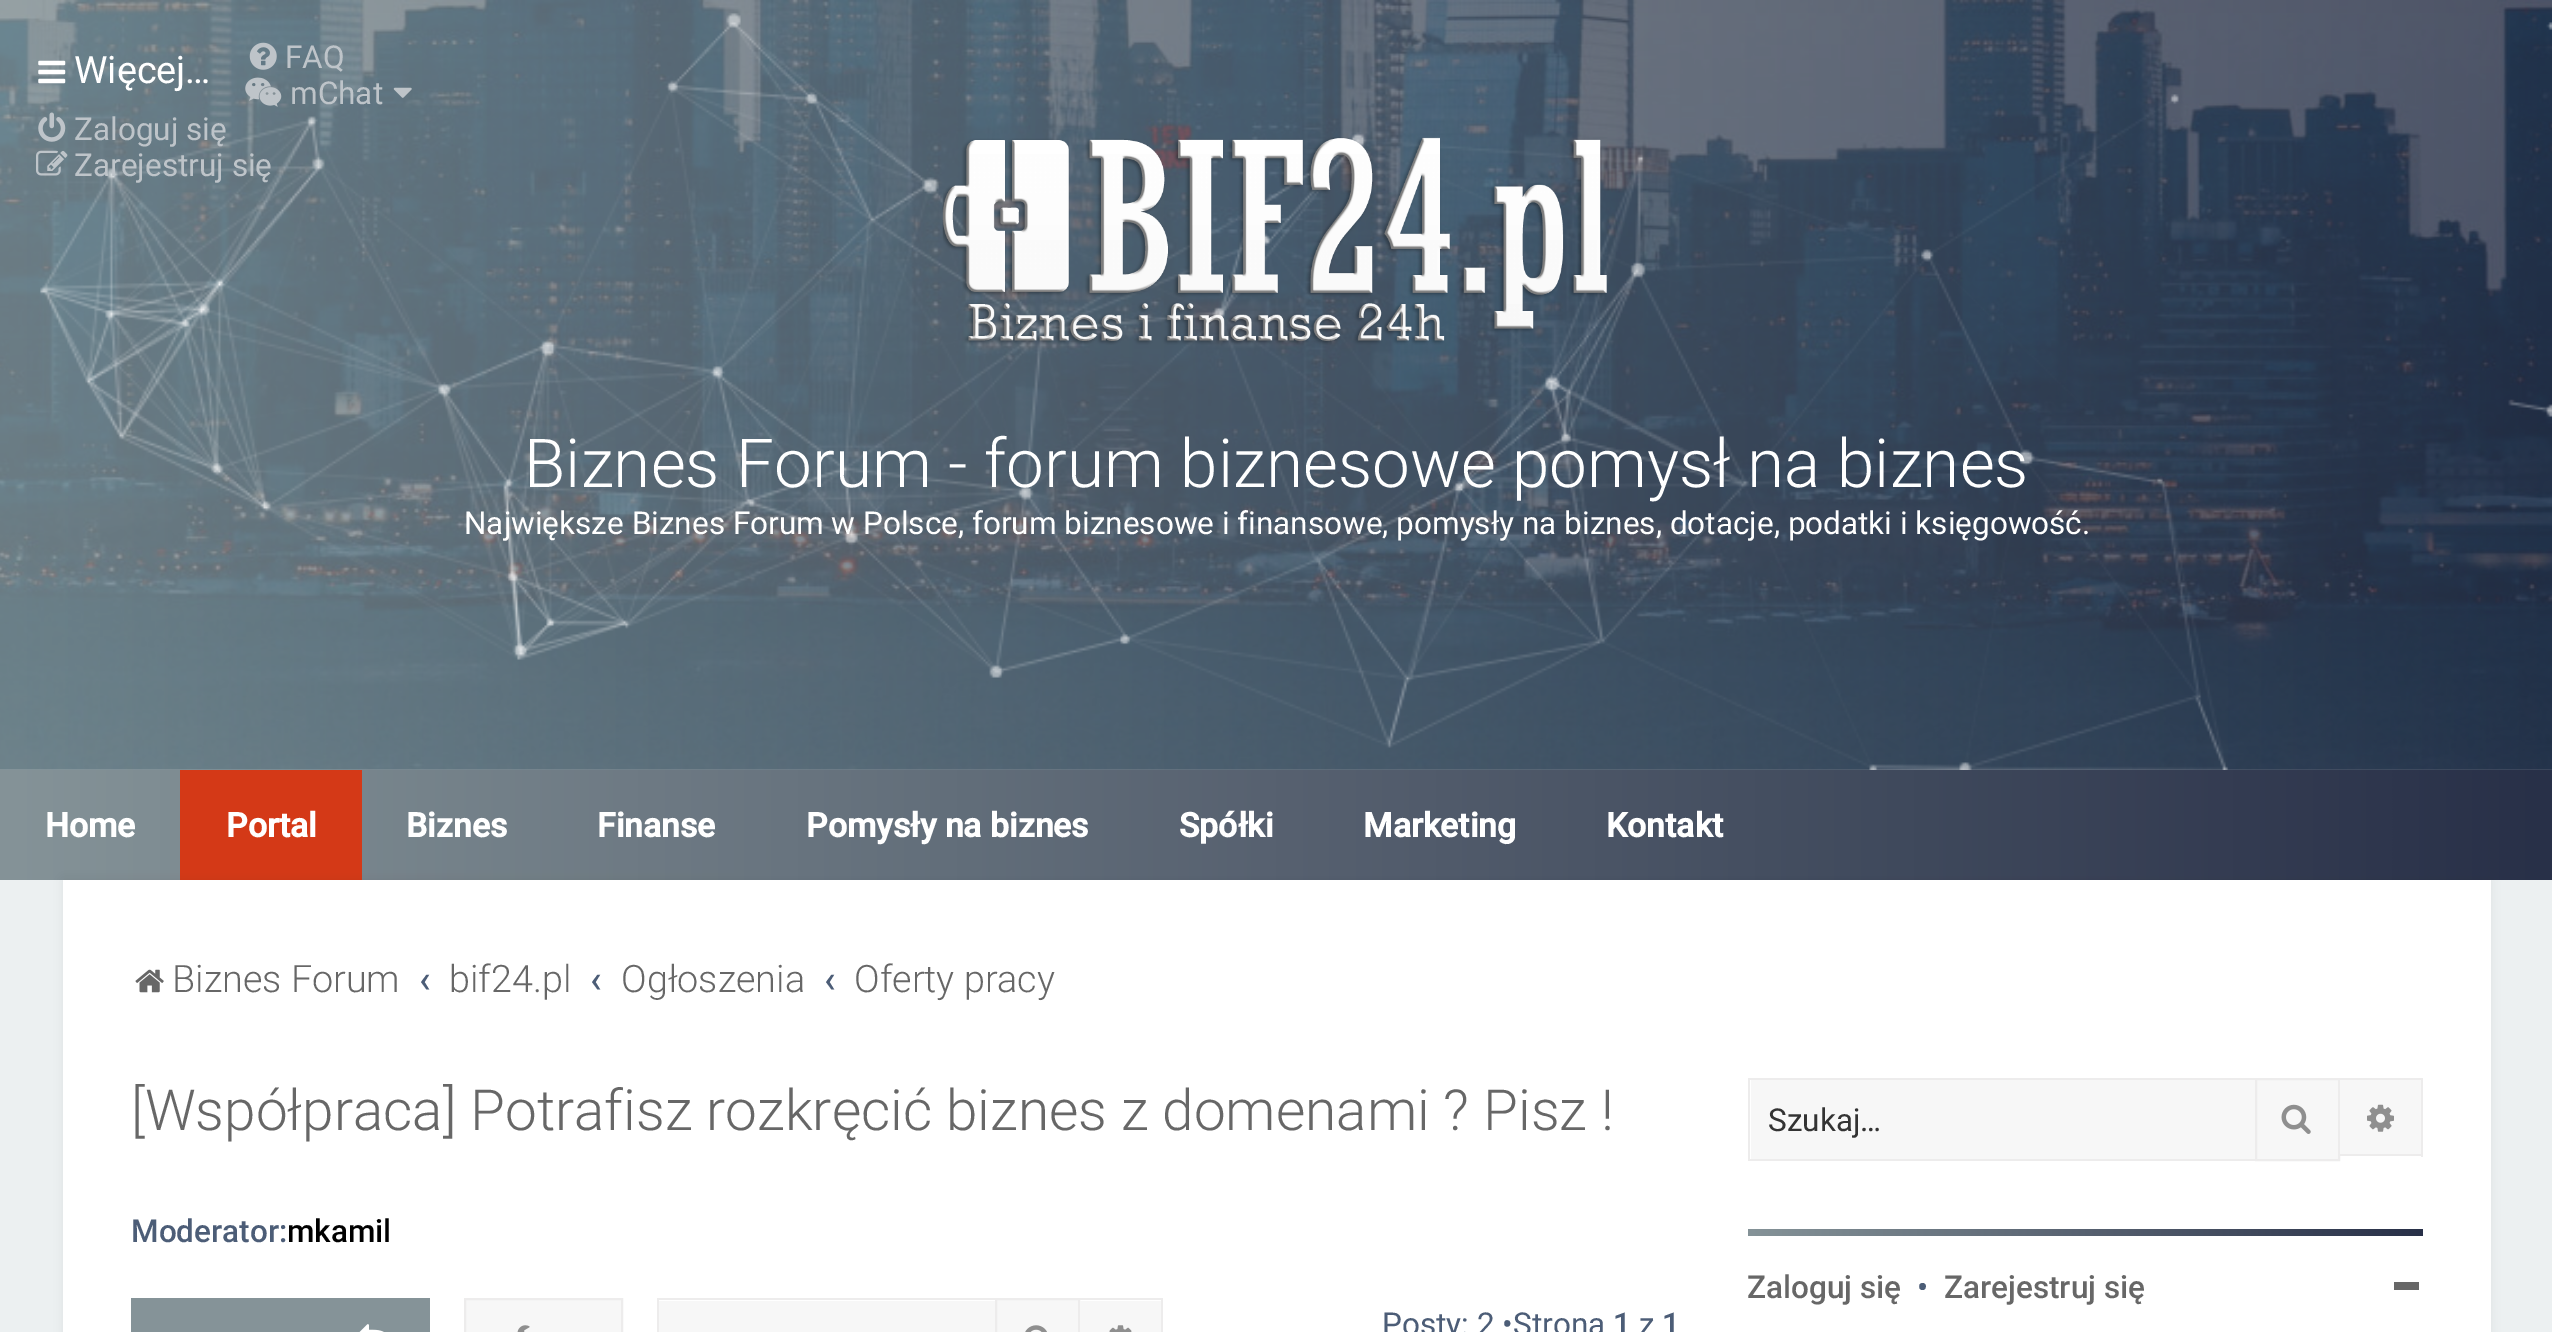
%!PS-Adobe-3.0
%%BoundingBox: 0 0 2552 1332
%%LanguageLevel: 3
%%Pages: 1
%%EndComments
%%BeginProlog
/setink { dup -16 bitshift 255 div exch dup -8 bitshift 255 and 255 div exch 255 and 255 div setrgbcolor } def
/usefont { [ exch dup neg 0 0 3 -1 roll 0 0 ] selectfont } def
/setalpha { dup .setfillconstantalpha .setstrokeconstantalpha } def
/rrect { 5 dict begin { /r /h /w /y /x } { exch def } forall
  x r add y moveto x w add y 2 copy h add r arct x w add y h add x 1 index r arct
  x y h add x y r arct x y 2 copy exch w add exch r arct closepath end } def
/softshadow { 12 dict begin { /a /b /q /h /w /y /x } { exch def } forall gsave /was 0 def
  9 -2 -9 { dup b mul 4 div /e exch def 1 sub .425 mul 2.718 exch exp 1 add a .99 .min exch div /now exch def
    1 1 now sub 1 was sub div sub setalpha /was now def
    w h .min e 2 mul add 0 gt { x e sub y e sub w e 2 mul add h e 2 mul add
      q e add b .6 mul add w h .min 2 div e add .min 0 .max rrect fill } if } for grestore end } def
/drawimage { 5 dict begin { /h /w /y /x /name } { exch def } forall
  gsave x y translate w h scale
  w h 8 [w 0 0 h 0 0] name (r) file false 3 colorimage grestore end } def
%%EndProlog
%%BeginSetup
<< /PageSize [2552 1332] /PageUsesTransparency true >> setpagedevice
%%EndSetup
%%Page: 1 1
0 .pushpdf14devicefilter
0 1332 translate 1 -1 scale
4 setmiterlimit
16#ECF0F1 setink
0 0 2552 1332 rectfill
(img1.raw) 0 0 2552 770 drawimage
0.8 setalpha
gsave 0 0 moveto 2552 0 lineto 2552 770 lineto 0 770 lineto closepath clip newpath
<< /ShadingType 2 /ColorSpace /DeviceRGB /Coords [0 385 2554 385] /Extend [true true] /Function << /FunctionType 2 /Domain [0 1] /C0 [0.522 0.576 0.596] /C1 [0.157 0.188 0.282] /N 1 >> >> shfill grestore
1 setalpha
(img8.raw) 40 13 2512 757 drawimage
(img2.raw) 249 42 28 28 drawimage
/Roboto-Regular 31.5 usefont
16#BEC4C9 setink
285 68 moveto (FAQ) show
(img3.raw) 245 77 37 30 drawimage
290 104 moveto (mChat) show
(img4.raw) 393 87 19 11 drawimage
(img5.raw) 38 112 28 30 drawimage
74 140 moveto (Zaloguj się) show
(img6.raw) 36 150 32 26 drawimage
74 176 moveto (Zarejestruj się) show
(img7.raw) 38 60 28 24 drawimage
/Roboto-Regular 37.75 usefont
16#FFFFFF setink
74 83 moveto (Więcej…) show
(img9.raw) 942 137 665 208 drawimage
/Roboto-Light 67.5 usefont
524 487 moveto (Biznes Forum - forum biznesowe pomysł na biznes) show
/Roboto-Regular 31.5 usefont
464 534 moveto (Największe Biznes Forum w Polsce, forum biznesowe i finansowe, pomysły na biznes, dotacje, podatki i księgowość.) show
gsave 0 770 moveto 2552 770 lineto 2552 880 lineto 0 880 lineto closepath clip newpath
<< /ShadingType 2 /ColorSpace /DeviceRGB /Coords [0 825 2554 825] /Extend [true true] /Function << /FunctionType 2 /Domain [0 1] /C0 [0.522 0.576 0.596] /C1 [0.157 0.188 0.282] /N 1 >> >> shfill grestore
/Roboto-Bold 33.75 usefont
45 837 moveto (Home) show
16#D43917 setink
180 770 182 110 rectfill
16#FFFFFF setink
[
    [(Portal) 226 837]
    [(Biznes) 406 837]
    [(Finanse) 597 837]
    [(Pomysły na biznes) 806 837]
    [(Spółki) 1179 837]
    [(Marketing) 1363 837]
    [(Kontakt) 1606 837]
] { aload pop moveto show } forall
16#000000 setink
63 880 2428 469 0 5.5 0.05 softshadow
16#FFFFFF setink
63 880 2428 452 rectfill
(img10.raw) 135 969 29 24 drawimage
/Roboto-Light 37.75 usefont
16#676767 setink
172 992 moveto (Biznes Forum) show
/Roboto-Medium 37.75 usefont
16#4C5D77 setink
419 992 moveto (‹) show
/Roboto-Light 37.75 usefont
16#676767 setink
449 992 moveto (bif24.pl) show
/Roboto-Medium 37.75 usefont
16#4C5D77 setink
590 992 moveto (‹) show
/Roboto-Light 37.75 usefont
16#676767 setink
621 992 moveto (Ogłoszenia) show
/Roboto-Medium 37.75 usefont
16#4C5D77 setink
824 992 moveto (‹) show
/Roboto-Light 37.75 usefont
16#676767 setink
854 992 moveto (Oferty pracy) show
/Roboto-Light 56.7 usefont
131 1130 moveto ([Współpraca] Potrafisz rozkręcić biznes z domenami ? Pisz !) show
/Roboto-Medium 31.5 usefont
16#4C5D77 setink
131 1242 moveto (Moderator:) show
16#000000 setink
287 1242 moveto (mkamil) show
16#859398 setink
131 1298 299 34 rectfill
(img11.raw) 359 1324 25 8 drawimage
16#F7F7F7 setink
465 1299 moveto 622 1299 lineto 622 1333 lineto 465 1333 lineto closepath gsave fill grestore
16#EDECEC setink
2 setlinewidth
stroke
(img12.raw) 517 1325 13 7 drawimage
[
    [659 1301 336 31 16#F7F7F7]
    [657 1298 338 2 16#EDECEC]
    [657 1298 2 34 16#EDECEC]
] { aload pop setink rectfill } forall
16#F7F7F7 setink
996 1299 moveto 1079 1299 lineto 1079 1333 lineto 996 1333 lineto closepath gsave fill grestore
16#EDECEC setink
stroke
(img13.raw) 1025 1325 22 7 drawimage
[
    [1080 1301 81 31 16#F7F7F7]
    [1080 1298 83 2 16#EDECEC]
    [1161 1298 2 34 16#EDECEC]
] { aload pop setink rectfill } forall
(img14.raw) 1109 1325 23 7 drawimage
/Roboto-Regular 31.5 usefont
16#4C5D77 setink
1382 1335 moveto (Posty: 2 •Strona) show
/Roboto-Medium 31.5 usefont
1613 1335 moveto (1) show
/Roboto-Regular 31.5 usefont
1639 1335 moveto (z) show
/Roboto-Medium 31.5 usefont
1662 1335 moveto (1) show
[
    [1751 1080 504 79 16#F7F7F7]
    [1748 1078 507 2 16#EDECEC]
    [1748 1159 507 2 16#EDECEC]
    [1748 1078 2 83 16#EDECEC]
] { aload pop setink rectfill } forall
/Roboto-Regular 31.5 usefont
16#333333 setink
1768 1131 moveto (Szukaj…) show
16#F7F7F7 setink
2256 1079 moveto 2339 1079 lineto 2339 1160 lineto 2256 1160 lineto closepath gsave fill grestore
16#EDECEC setink
stroke
(img15.raw) 2281 1104 30 30 drawimage
[
    [2340 1080 81 74 16#F7F7F7]
    [2340 1078 83 2 16#EDECEC]
    [2421 1078 2 79 16#EDECEC]
    [2340 1154 83 2 16#EDECEC]
] { aload pop setink rectfill } forall
(img16.raw) 2367 1104 27 28 drawimage
gsave 1748 1229 moveto 2423 1229 lineto 2423 1236 lineto 1748 1236 lineto closepath clip newpath
<< /ShadingType 2 /ColorSpace /DeviceRGB /Coords [1748 1232 2423 1232] /Extend [true true] /Function << /FunctionType 2 /Domain [0 1] /C0 [0.522 0.576 0.596] /C1 [0.157 0.188 0.282] /N 1 >> >> shfill grestore
/Roboto-Medium 31.5 usefont
16#676767 setink
1747 1298 moveto (Zaloguj się) show
16#4C5D77 setink
1917 1298 moveto (•) show
16#676767 setink
1944 1298 moveto (Zarejestruj się) show
2394 1282 25 8 rectfill
.poppdf14devicefilter showpage
%%EOF
